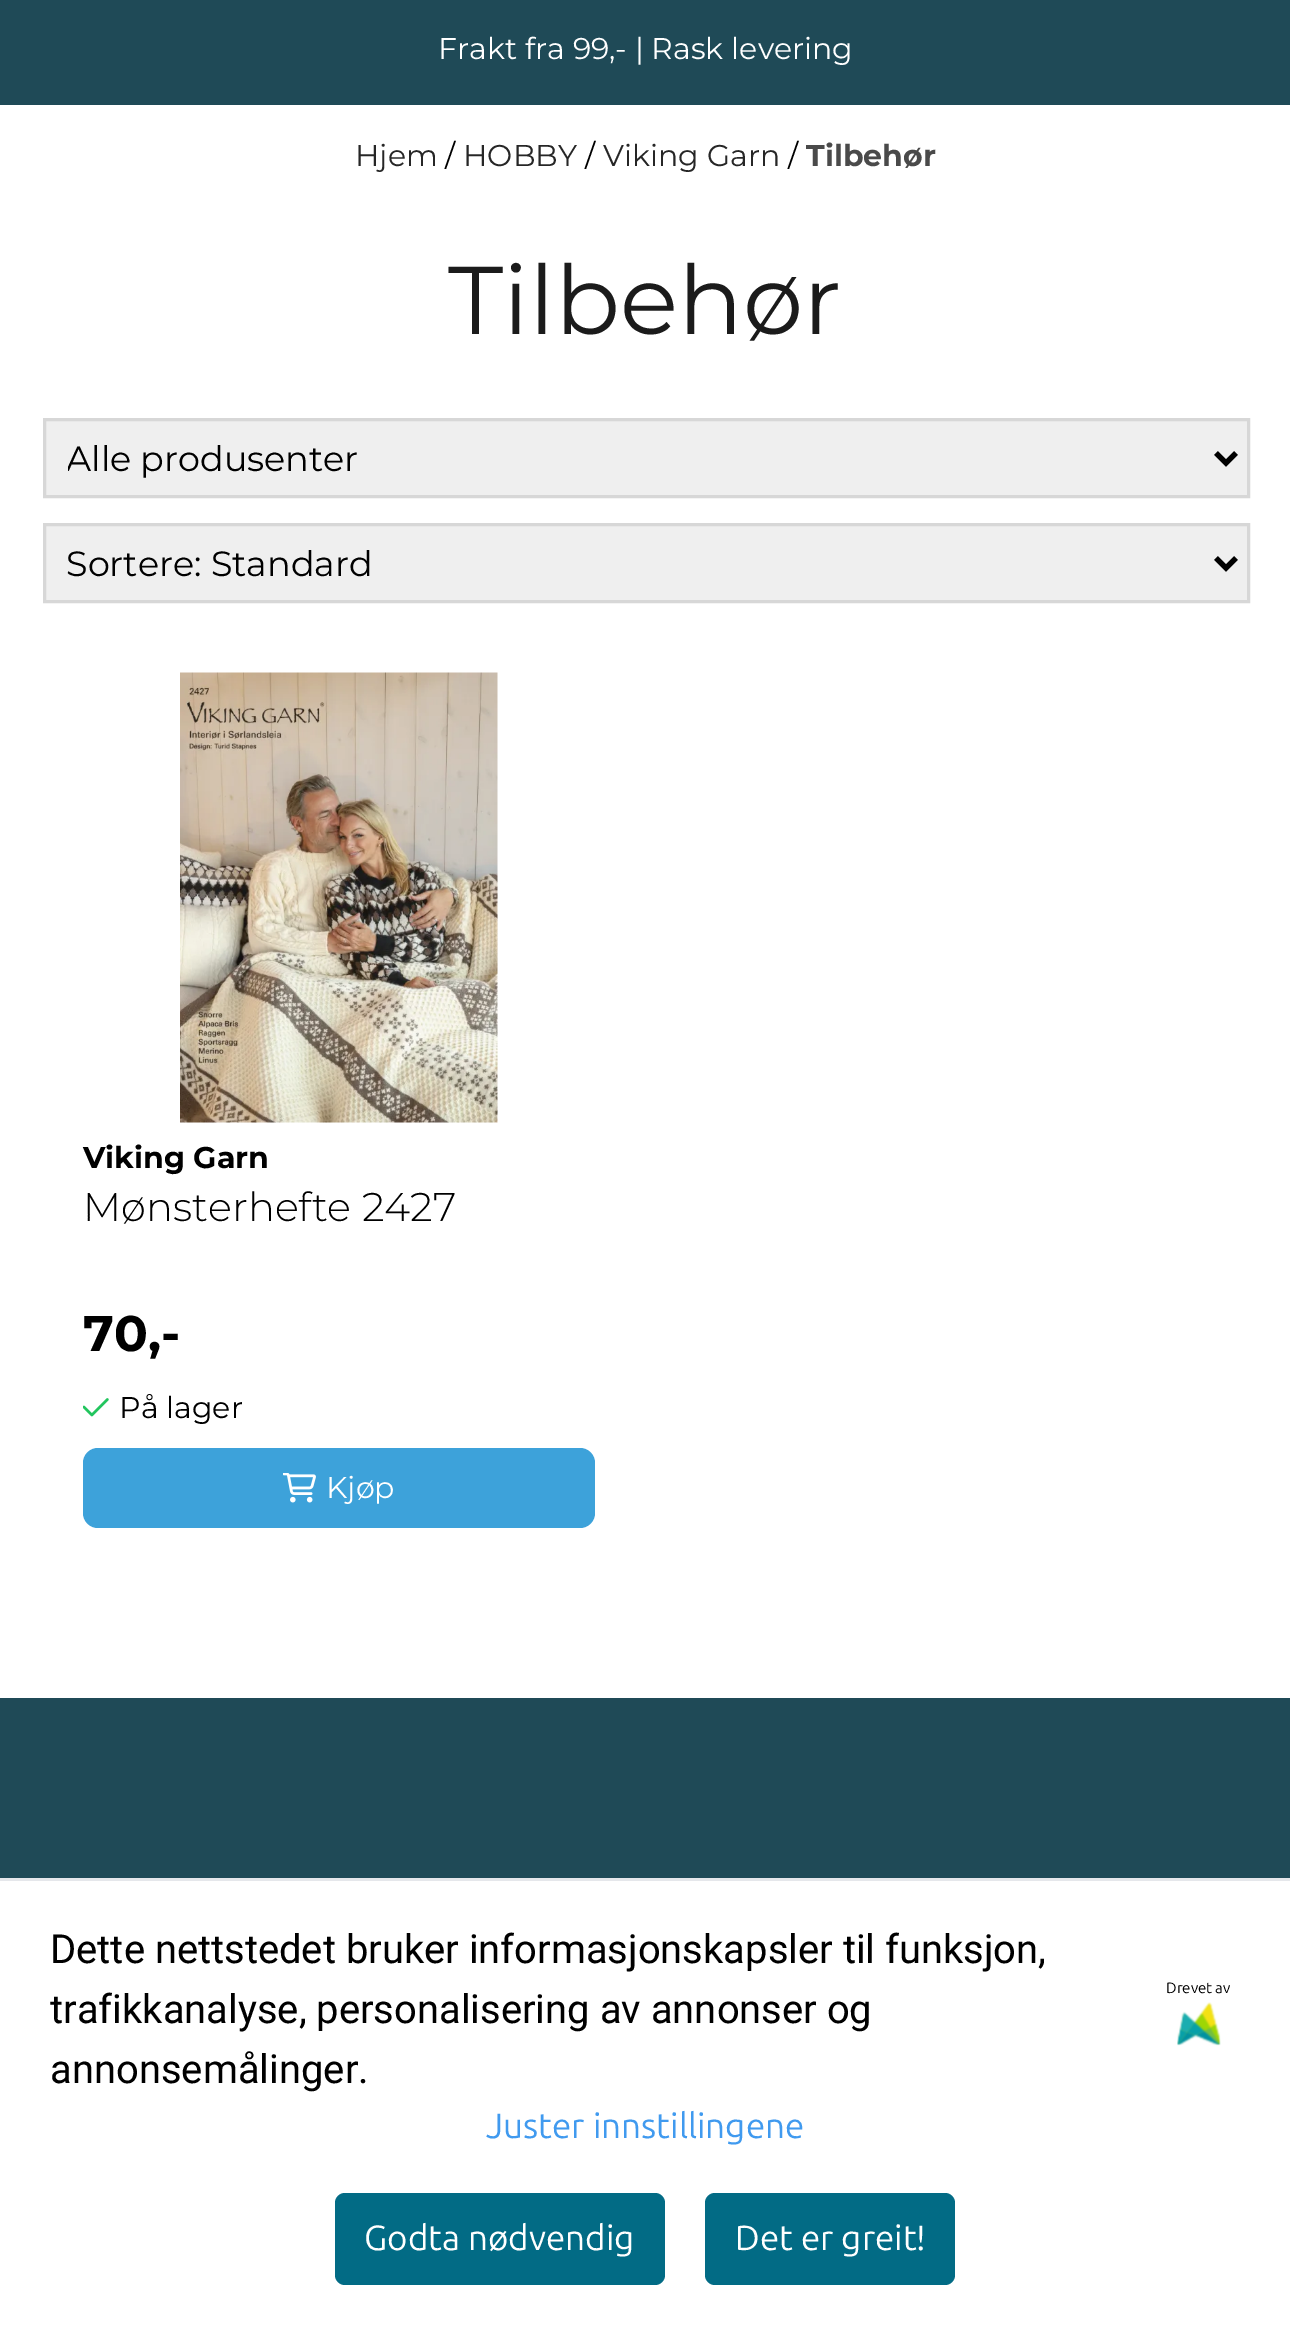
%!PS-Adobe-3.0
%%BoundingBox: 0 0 1290 2325
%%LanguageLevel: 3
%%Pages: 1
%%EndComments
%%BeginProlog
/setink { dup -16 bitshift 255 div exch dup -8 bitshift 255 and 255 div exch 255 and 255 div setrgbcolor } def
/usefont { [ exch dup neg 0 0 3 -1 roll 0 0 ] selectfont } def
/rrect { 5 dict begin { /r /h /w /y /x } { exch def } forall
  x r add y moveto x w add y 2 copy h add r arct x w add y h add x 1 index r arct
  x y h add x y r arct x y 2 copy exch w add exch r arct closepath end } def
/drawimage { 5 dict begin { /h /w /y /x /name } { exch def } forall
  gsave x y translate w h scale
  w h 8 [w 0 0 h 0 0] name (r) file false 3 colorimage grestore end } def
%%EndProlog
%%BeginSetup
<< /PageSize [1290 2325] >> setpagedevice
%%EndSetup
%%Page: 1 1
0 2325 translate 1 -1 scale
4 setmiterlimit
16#FFFFFF setink
0 0 1290 2325 rectfill
16#1F4A57 setink
0 0 1290 105 rectfill
/Montserrat-Thin 30 usefont
16#FFFFFF setink
438 59 moveto (Frakt fra 99,- | Rask levering) show
16#262626 setink
355 166 moveto (Hjem) show
16#000000 setink
445 166 moveto (/) show
16#262626 setink
463 166 moveto (HOBBY) show
16#000000 setink
585 166 moveto (/) show
16#262626 setink
603 166 moveto (Viking Garn) show
16#000000 setink
788 166 moveto (/) show
/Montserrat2-Thin 30 usefont
16#4A4A4A setink
806 166 moveto (Tilbehør) show
/Montserrat-Thin 96 usefont
16#1B1B1B setink
448 334 moveto (Tilbehør) show
16#EFEFEF setink
44.5 419.5 moveto 1248.5 419.5 lineto 1248.5 496.5 lineto 44.5 496.5 lineto closepath gsave fill grestore
16#D7D7D7 setink
3 setlinewidth
stroke
16#000000 setink
5 setlinewidth
1216 453 moveto 1226 463 lineto 1236 453 lineto stroke
gsave
68 433 1127 50 rectclip
/Montserrat-Thin 35 usefont
66 471 moveto (Alle produsenter) show
grestore
16#EFEFEF setink
44.5 524.5 moveto 1248.5 524.5 lineto 1248.5 601.5 lineto 44.5 601.5 lineto closepath gsave fill grestore
16#D7D7D7 setink
3 setlinewidth
stroke
16#000000 setink
5 setlinewidth
1216 558 moveto 1226 568 lineto 1236 558 lineto stroke
/Montserrat-Thin 35 usefont
66 576 moveto (Sortere: Standard) show
(img1.raw) 180 672 318 451 drawimage
/Montserrat2-Thin 30 usefont
83 1168 moveto (Viking Garn) show
/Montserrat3-Thin 40 usefont
83 1221 moveto (Mønsterhefte 2427) show
/Montserrat2-Thin 50 usefont
83 1351 moveto (70,-) show
(img2.raw) 83 1398 26 19 drawimage
/Montserrat-Thin 30 usefont
119 1418 moveto (På lager) show
16#3DA2DA setink
83 1448 512 80 15 rrect fill
(img3.raw) 283 1473 33 30 drawimage
16#FFFFFF setink
326 1498 moveto (Kjøp) show
16#1F4A57 setink
0 1698 1290 180 rectfill
16#E5E7EB setink
0 1878 1290 3 rectfill
/Roboto-Regular 40 usefont
16#000000 setink
[
    [(Dette nettstedet bruker informasjonskapsler til funksjon,) 50 1963]
    [(trafikkanalyse, personalisering av annonser og) 50 2023]
    [(annonsemålinger.) 50 2083]
] { aload pop moveto show } forall
/Ubuntu-Regular 15 usefont
1166 1993 moveto (Drevet av) show
(img4.raw) 1177 2002 44 44 drawimage
/Ubuntu-Regular 35 usefont
16#409AEF setink
486 2138 moveto (Juster innstillingene) show
16#026B85 setink
335 2193 330 92 10 rrect fill
16#FFFFFF setink
364 2250 moveto (Godta nødvendig) show
16#026B85 setink
705 2193 250 92 10 rrect fill
16#FFFFFF setink
735 2250 moveto (Det er greit!) show
showpage
%%EOF
